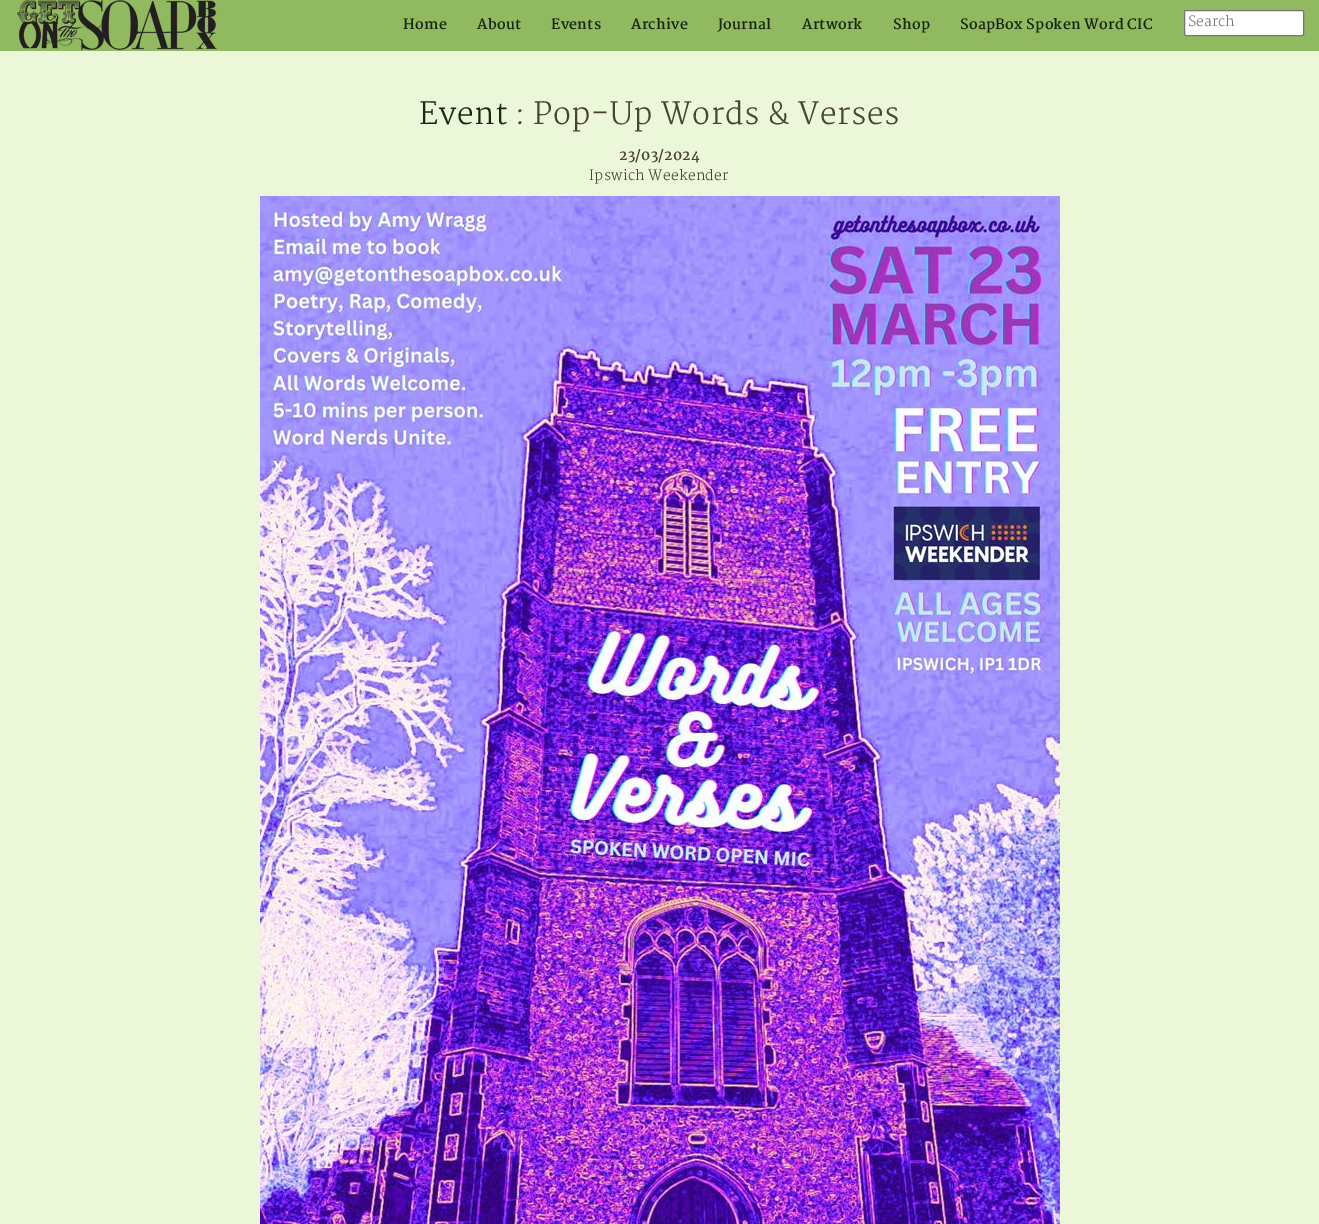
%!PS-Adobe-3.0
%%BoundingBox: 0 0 1319 1224
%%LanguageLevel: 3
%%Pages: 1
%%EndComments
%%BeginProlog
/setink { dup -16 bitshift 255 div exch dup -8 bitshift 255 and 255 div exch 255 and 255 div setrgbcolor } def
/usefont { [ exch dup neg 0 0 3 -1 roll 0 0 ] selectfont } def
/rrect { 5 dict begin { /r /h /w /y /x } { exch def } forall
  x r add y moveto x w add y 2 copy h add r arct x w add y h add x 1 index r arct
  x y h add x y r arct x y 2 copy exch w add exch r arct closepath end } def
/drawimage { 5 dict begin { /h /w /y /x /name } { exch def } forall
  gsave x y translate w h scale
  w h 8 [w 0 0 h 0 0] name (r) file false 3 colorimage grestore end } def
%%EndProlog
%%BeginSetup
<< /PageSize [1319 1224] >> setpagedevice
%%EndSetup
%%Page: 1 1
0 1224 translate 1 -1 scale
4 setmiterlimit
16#ECF6D9 setink
0 0 1319 1224 rectfill
16#91B95F setink
0 0 1319 51 rectfill
(img1.raw) 17 0 200 50 drawimage
/Martel-Bold 14 usefont
16#192515 setink
403 29 moveto 0.25 0 (Home) ashow
477 29 moveto 0.25 0 (About) ashow
551 29 moveto 0.25 0 (Events) ashow
631 29 moveto 0.25 0 (Archive) ashow
718 29 moveto 0.25 0 (Journal) ashow
802 29 moveto 0.25 0 (Artwork) ashow
893 29 moveto 0.25 0 (Shop) ashow
960 29 moveto 0.25 0 (SoapBox Spoken Word CIC) ashow
16#FFFFFF setink
1184.5 10.5 119 25 1.5 rrect gsave fill grestore
16#767676 setink
stroke
/Martel-Light 14 usefont
16#757575 setink
1188 26 moveto (Search) show
/Martel-Light 30 usefont
16#192515 setink
419 124 moveto 0.6 0 (Event) ashow
16#4A4333 setink
515 124 moveto 0.6 0 (: Pop-Up Words & Verses) ashow
/Martel-Bold 14 usefont
619 160 moveto 0.25 0 (23/03/2024) ashow
/Martel-Light 14 usefont
589 180 moveto 0.25 0 (Ipswich Weekender) ashow
(img2.raw) 260 196 800 1028 drawimage
showpage
%%EOF
